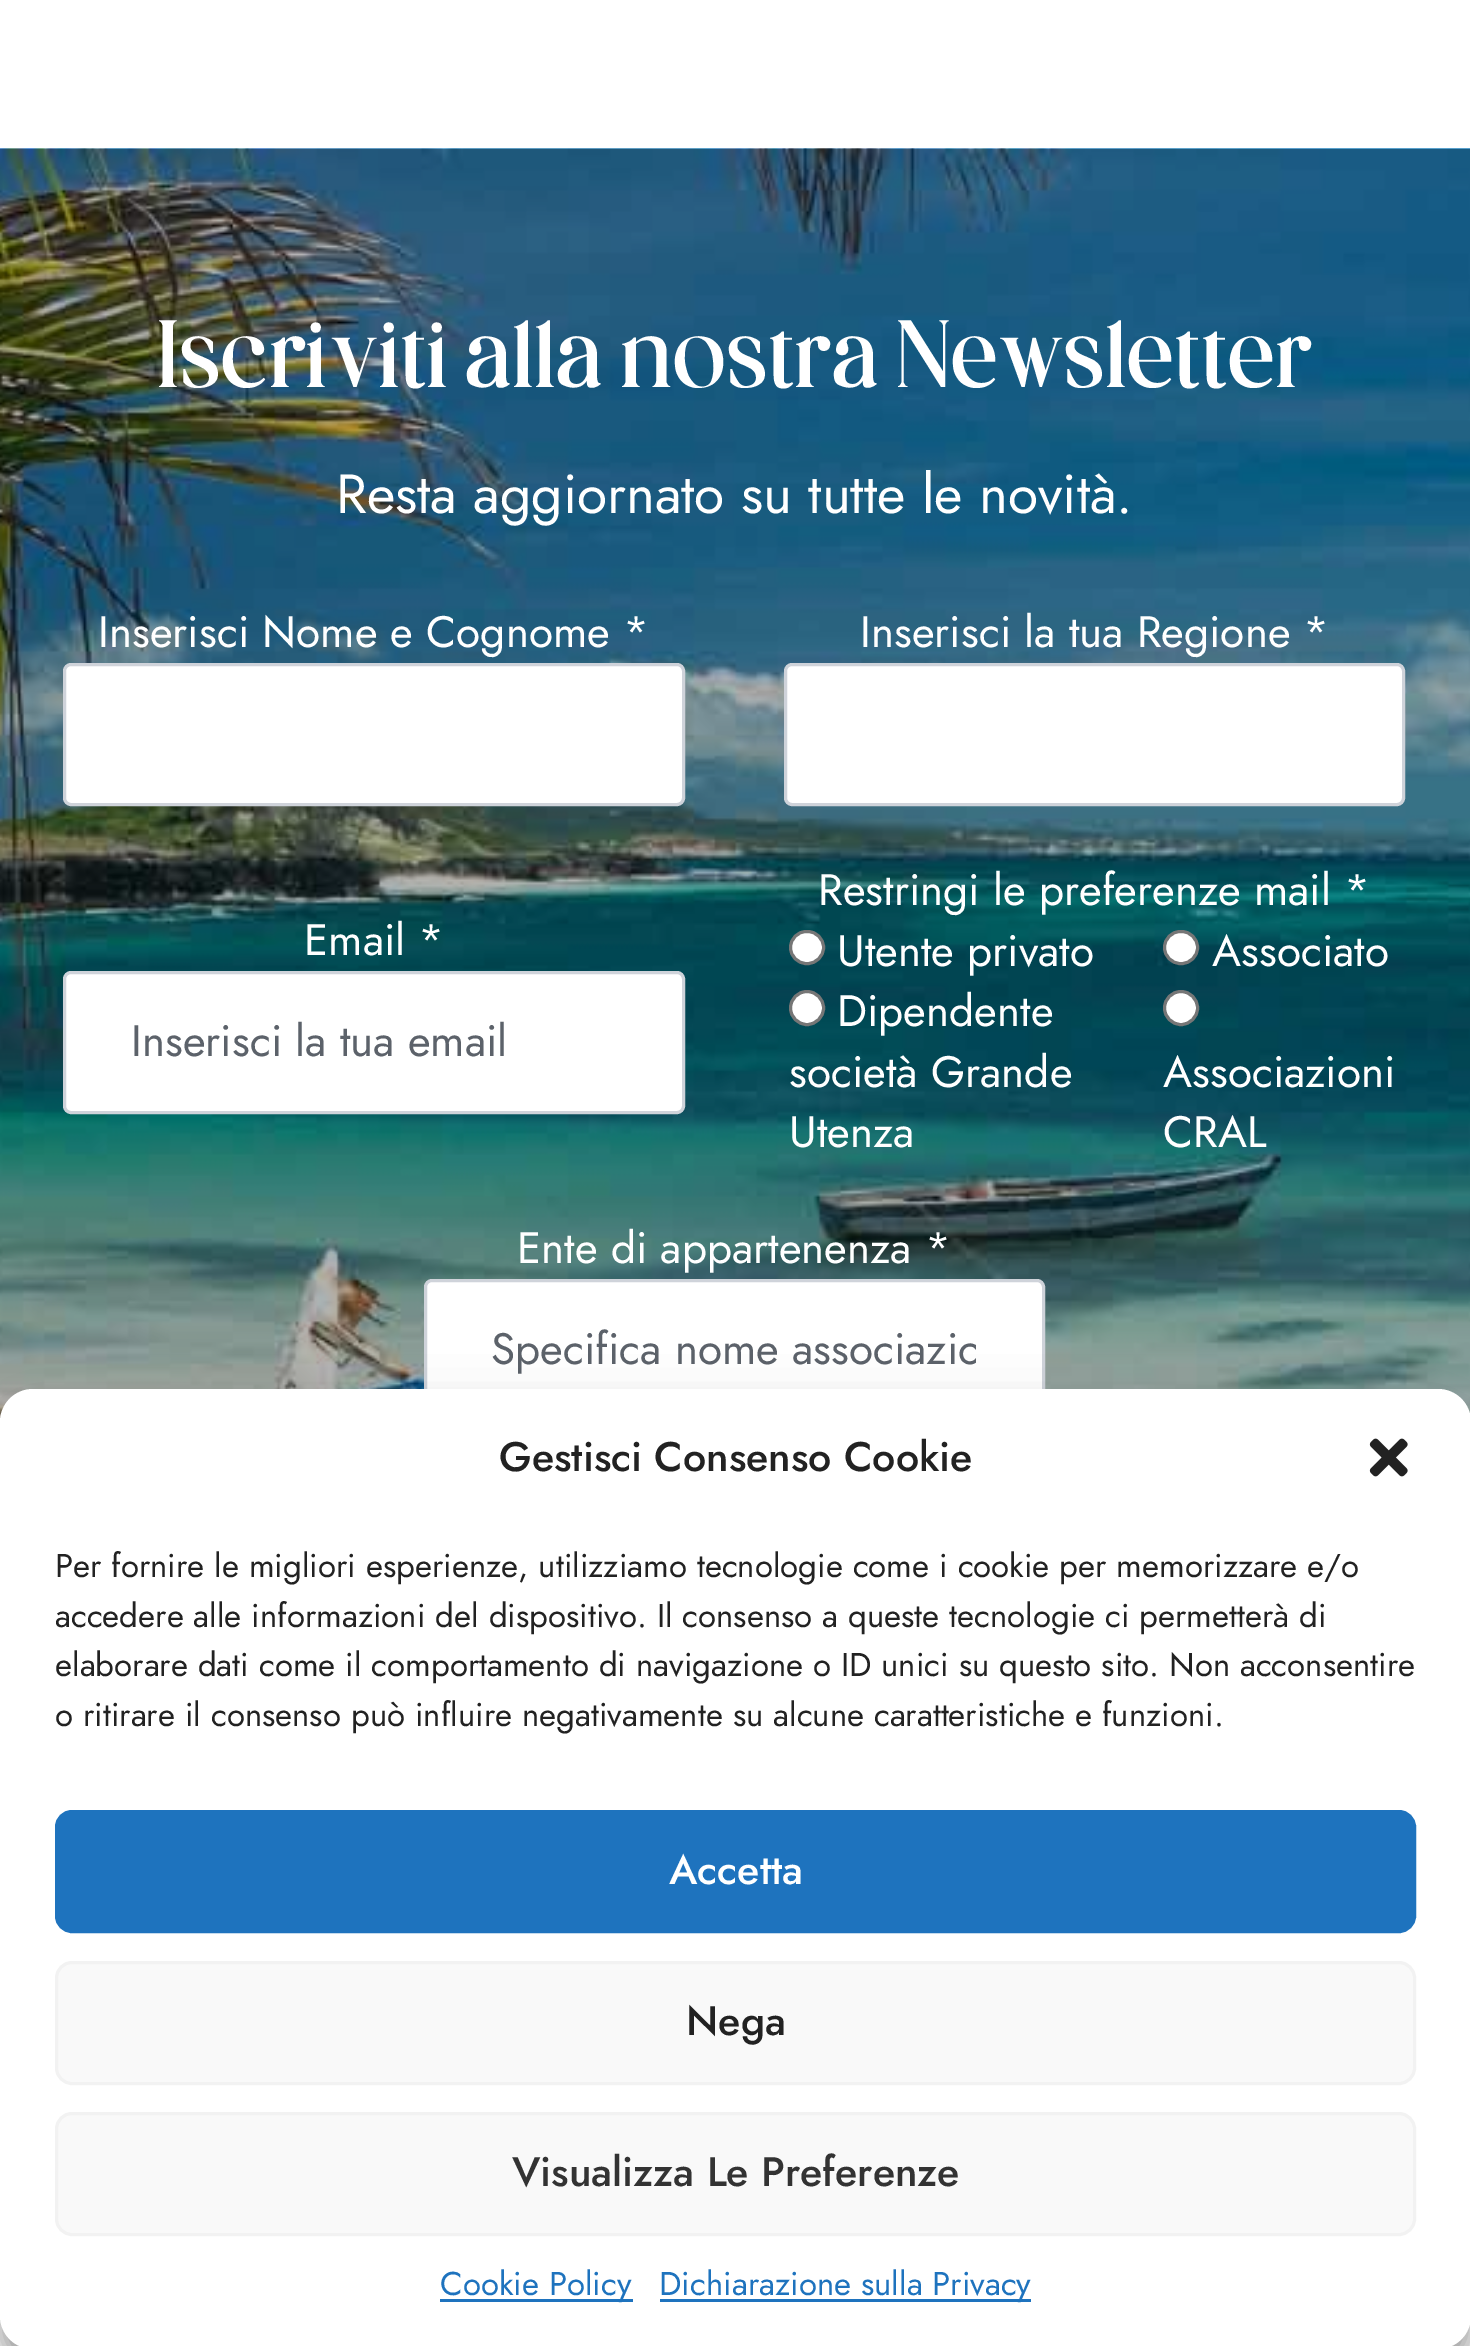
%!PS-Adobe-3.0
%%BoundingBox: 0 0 1470 2346
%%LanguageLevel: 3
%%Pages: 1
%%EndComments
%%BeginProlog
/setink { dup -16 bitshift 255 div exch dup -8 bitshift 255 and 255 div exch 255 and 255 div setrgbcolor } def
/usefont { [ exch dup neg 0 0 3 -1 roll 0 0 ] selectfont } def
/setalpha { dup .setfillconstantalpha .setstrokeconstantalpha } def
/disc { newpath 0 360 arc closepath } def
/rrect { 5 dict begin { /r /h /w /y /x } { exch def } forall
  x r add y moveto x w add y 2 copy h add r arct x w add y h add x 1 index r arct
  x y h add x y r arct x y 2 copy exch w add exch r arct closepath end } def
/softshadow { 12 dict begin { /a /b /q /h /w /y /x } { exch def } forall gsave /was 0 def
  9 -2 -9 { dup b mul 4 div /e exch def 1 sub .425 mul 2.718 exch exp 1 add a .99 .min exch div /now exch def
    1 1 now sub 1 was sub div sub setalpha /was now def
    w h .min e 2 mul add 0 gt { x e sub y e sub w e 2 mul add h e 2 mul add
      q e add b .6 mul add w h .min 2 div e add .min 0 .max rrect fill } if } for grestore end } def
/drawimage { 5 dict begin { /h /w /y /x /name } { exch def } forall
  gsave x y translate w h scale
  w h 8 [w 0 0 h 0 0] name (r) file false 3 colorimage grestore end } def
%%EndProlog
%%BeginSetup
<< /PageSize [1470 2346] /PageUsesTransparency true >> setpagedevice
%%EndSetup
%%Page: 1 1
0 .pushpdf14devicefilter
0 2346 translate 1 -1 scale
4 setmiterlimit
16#FFFFFF setink
0 0 1470 2346 rectfill
(img1.raw) 0 148 1470 1274 drawimage
/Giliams-Regular 93.5 usefont
157 387 moveto (Iscriviti alla nostra Newsletter) show
/Jost-Regular 55 usefont
336 513 moveto (Resta aggiornato su tutte le novità.) show
/Jost-Regular 44 usefont
98 647 moveto (Inserisci Nome e Cognome *) show
64.5 664.5 619 140 6.5 rrect gsave fill grestore
16#CFD3DA setink
3 setlinewidth
stroke
16#FFFFFF setink
860 647 moveto (Inserisci la tua Regione *) show
785.5 664.5 618 140 6.5 rrect gsave fill grestore
16#CFD3DA setink
stroke
16#FFFFFF setink
304 955 moveto (Email *) show
64.5 972.5 619 140 6.5 rrect gsave fill grestore
16#CFD3DA setink
stroke
16#5C626A setink
131 1056 moveto (Inserisci la tua email) show
16#FFFFFF setink
818 905 moveto (Restringi le preferenze mail *) show
790.5 931.5 33 32 16 rrect gsave fill grestore
16#767676 setink
stroke
16#FFFFFF setink
837 966 moveto (Utente privato) show
1164.5 931.5 33 32 16 rrect gsave fill grestore
16#767676 setink
stroke
16#FFFFFF setink
1212 966 moveto (Associato) show
807 1008 16.5 disc gsave fill grestore
16#767676 setink
stroke
16#FFFFFF setink
[
    [(Dipendente) 837 1026]
    [(società Grande) 789 1087]
    [(Utenza) 789 1147]
] { aload pop moveto show } forall
1181 1008 16.5 disc gsave fill grestore
16#767676 setink
stroke
16#FFFFFF setink
[
    [(Associazioni) 1163 1087]
    [(CRAL) 1163 1147]
    [(Ente di appartenenza *) 517 1263]
] { aload pop moveto show } forall
425.5 1280.5 618 140 6.5 rrect gsave fill grestore
16#CFD3DA setink
stroke
gsave
492 1317 484 64 rectclip
16#5C626A setink
491 1364 moveto (Specifica nome associazio) show
grestore
16#000000 setink
0 1405 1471 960 33 8 0.23 softshadow
0 1416 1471 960 33 27.5 0.19 softshadow
16#FFFFFF setink
0 1389 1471 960 33 rrect fill
/Jost-Medium 41.25 usefont
16#222222 setink
499 1471 moveto (Gestisci Consenso Cookie) show
(img2.raw) 1369 1438 39 39 drawimage
/Jost-Regular 33 usefont
[
    [(Per fornire le migliori esperienze, utilizziamo tecnologie come i cookie per memorizzare e/o) 55 1577]
    [(accedere alle informazioni del dispositivo. Il consenso a queste tecnologie ci permetterà di) 55 1627]
    [(elaborare dati come il comportamento di navigazione o ID unici su questo sito. Non acconsentire) 55 1676]
    [(o ritirare il consenso può influire negativamente su alcune caratteristiche e funzioni.) 55 1726]
] { aload pop moveto show } forall
16#1E73BE setink
56.5 1811.5 1358 120 15.5 rrect gsave fill grestore
stroke
/Jost-Medium 41.25 usefont
16#FFFFFF setink
669 1884 moveto (Accetta) show
16#F9F9F9 setink
56.5 1962.5 1358 121 15.5 rrect gsave fill grestore
16#F2F2F2 setink
stroke
16#222222 setink
686 2035 moveto (Nega) show
16#F9F9F9 setink
56.5 2113.5 1358 121 15.5 rrect gsave fill grestore
16#F2F2F2 setink
stroke
16#333333 setink
512 2186 moveto (Visualizza Le Preferenze) show
16#1E73BE setink
440 2299 193 3 rectfill
/Jost-Regular 33 usefont
440 2295 moveto (Cookie Policy) show
660 2299 371 3 rectfill
659 2295 moveto (Dichiarazione sulla Privacy) show
.poppdf14devicefilter showpage
%%EOF
